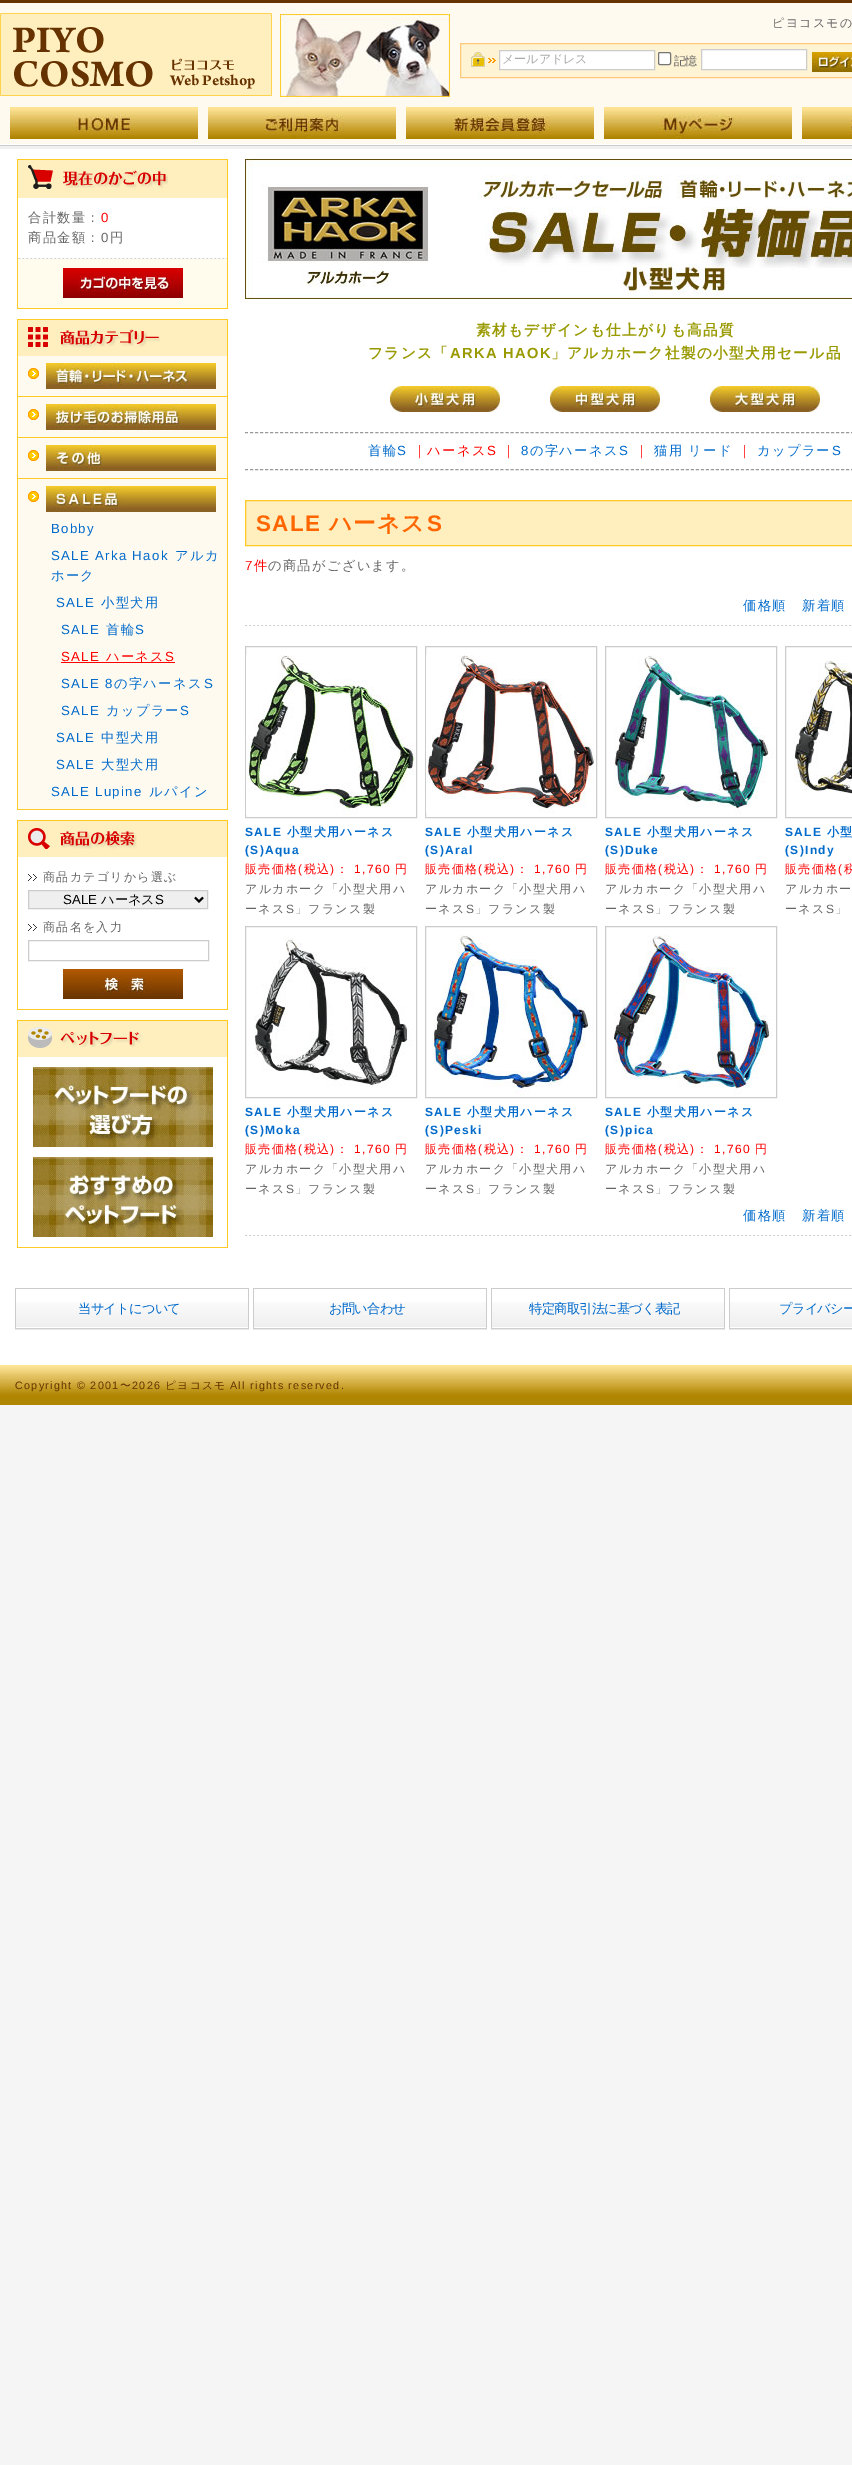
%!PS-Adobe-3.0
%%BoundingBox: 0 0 852 2465
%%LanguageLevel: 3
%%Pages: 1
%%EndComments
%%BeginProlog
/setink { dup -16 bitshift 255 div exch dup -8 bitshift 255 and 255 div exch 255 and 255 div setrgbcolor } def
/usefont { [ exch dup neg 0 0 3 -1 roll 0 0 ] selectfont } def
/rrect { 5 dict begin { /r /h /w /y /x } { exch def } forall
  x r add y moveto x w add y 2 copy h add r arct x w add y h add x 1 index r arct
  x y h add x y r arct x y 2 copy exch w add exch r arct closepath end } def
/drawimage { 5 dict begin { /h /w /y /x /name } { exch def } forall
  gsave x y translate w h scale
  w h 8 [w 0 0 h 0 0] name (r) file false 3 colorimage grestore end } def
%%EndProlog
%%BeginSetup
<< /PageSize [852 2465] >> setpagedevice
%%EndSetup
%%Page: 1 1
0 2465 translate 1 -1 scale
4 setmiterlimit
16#F5F5F5 setink
0 0 852 2465 rectfill
16#FFFAF0 setink
0 3 852 141 rectfill
(img1.raw) 0 144 852 5 drawimage
16#663300 setink
0 0 852 3 rectfill
(img2.raw) 280 14 170 83 drawimage
(img3.raw) 0 13 272 83 drawimage
/WenQuanYiZenHei-Medium 12 usefont
16#666666 setink
772 27 moveto 1.3 0 (ピヨコスモの) ashow
16#FEF3D3 setink
460.5 43.5 moveto 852.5 43.5 lineto 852.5 77.5 lineto 460.5 77.5 lineto closepath gsave fill grestore
16#FFC979 setink
stroke
(img4.raw) 471 52 25 15 drawimage
16#FFFFFF setink
499.5 50.5 moveto 654.5 50.5 lineto 654.5 69.5 lineto 499.5 69.5 lineto closepath gsave fill grestore
16#CCCCCC setink
stroke
16#AAAAAA setink
502 63 moveto (メールアドレス) show
16#FFFFFF setink
658.5 52.5 12 12 1.5 rrect gsave fill grestore
16#767676 setink
stroke
16#666666 setink
674 65 moveto -1 0 (記憶) ashow
16#FFFFFF setink
701.5 49.5 moveto 806.5 49.5 lineto 806.5 69.5 lineto 701.5 69.5 lineto closepath gsave fill grestore
16#CCCCCC setink
stroke
(img5.raw) 812 52 40 20 drawimage
(img6.raw) 10 107 188 32 drawimage
(img7.raw) 208 107 188 32 drawimage
(img8.raw) 406 107 188 32 drawimage
(img9.raw) 604 107 188 32 drawimage
(img10.raw) 802 107 50 32 drawimage
[
    [0 149 852 1216 16#FFFFFF]
    [18 160 209 38 16#FFEFBF]
    [17 159 211 1 16#FFC926]
    [227 159 1 150 16#FFC926]
    [17 159 1 39 16#FFC926]
] { aload pop setink rectfill } forall
(img11.raw) 28 165 140 24 drawimage
17 308 211 1 rectfill
17 198 1 111 rectfill
/WenQuanYiZenHei-Medium 13.25 usefont
16#666666 setink
28 222 moveto 1.3 0 (合計数量：) ashow
/LiberationSans-Regular 13.25 usefont
16#FF0000 setink
101 222 moveto 1.3 0 (0) ashow
/WenQuanYiZenHei-Medium 13.25 usefont
16#666666 setink
28 242 moveto 1.3 0 (商品金額：) ashow
/LiberationSans-Regular 13.25 usefont
101 242 moveto 1.3 0 (0) ashow
/WenQuanYiZenHei-Medium 13.25 usefont
110 242 moveto 1.3 0 (円) ashow
16#FFFBED setink
18 259 209 49 rectfill
(img12.raw) 18 258 209 1 drawimage
(img13.raw) 63 268 120 30 drawimage
[
    [18 356 209 453 16#FFFAF0]
    [227 319 1 491 16#FFC926]
    [17 809 211 1 16#FFC926]
    [17 319 1 491 16#FFC926]
    [18 320 209 36 16#FFEFBF]
    [18 319 209 1 16#FFC926]
] { aload pop setink rectfill } forall
(img14.raw) 28 327 132 21 drawimage
18 396 209 1 rectfill
(img15.raw) 28 368 11 11 drawimage
(img16.raw) 46 363 170 26 drawimage
18 437 209 1 rectfill
(img15.raw) 28 409 11 11 drawimage
(img17.raw) 46 404 170 26 drawimage
18 478 209 1 rectfill
(img15.raw) 28 450 11 11 drawimage
(img18.raw) 46 445 170 26 drawimage
(img15.raw) 28 491 11 11 drawimage
(img19.raw) 46 486 170 26 drawimage
/LiberationSans-Regular 13.25 usefont
16#006ACB setink
51 533 moveto 1.3 0 (Bobby) ashow
51 560 moveto 1.3 0 (SALE Arka Haok) ashow
/WenQuanYiZenHei-Medium 13.25 usefont
175 560 moveto 1.3 0 (アルカ) ashow
51 580 moveto 1.3 0 (ホーク) ashow
/LiberationSans-Regular 13.25 usefont
56 607 moveto 1.3 0 (SALE) ashow
/WenQuanYiZenHei-Medium 13.25 usefont
101 607 moveto 1.3 0 (小型犬用) ashow
/LiberationSans-Regular 13.25 usefont
61 634 moveto 1.3 0 (SALE) ashow
/WenQuanYiZenHei-Medium 13.25 usefont
106 634 moveto 1.3 0 (首輪) ashow
/LiberationSans-Regular 13.25 usefont
135 634 moveto 1.3 0 (S) ashow
16#FF0000 setink
61 661 moveto 1.3 0 (SALE) ashow
61 662 114 1 rectfill
/WenQuanYiZenHei-Medium 13.25 usefont
106 661 moveto 1.3 0 (ハーネス) ashow
/LiberationSans-Regular 13.25 usefont
165 661 moveto 1.3 0 (S) ashow
16#006ACB setink
61 688 moveto 1.3 0 (SALE 8) ashow
/WenQuanYiZenHei-Medium 13.25 usefont
114 688 moveto 1.3 0 (の字ハーネス) ashow
/LiberationSans-Regular 13.25 usefont
204 688 moveto 1.3 0 (S) ashow
61 715 moveto 1.3 0 (SALE) ashow
/WenQuanYiZenHei-Medium 13.25 usefont
106 715 moveto 1.3 0 (カップラー) ashow
/LiberationSans-Regular 13.25 usefont
180 715 moveto 1.3 0 (S) ashow
56 742 moveto 1.3 0 (SALE) ashow
/WenQuanYiZenHei-Medium 13.25 usefont
101 742 moveto 1.3 0 (中型犬用) ashow
/LiberationSans-Regular 13.25 usefont
56 769 moveto 1.3 0 (SALE) ashow
/WenQuanYiZenHei-Medium 13.25 usefont
101 769 moveto 1.3 0 (大型犬用) ashow
/LiberationSans-Regular 13.25 usefont
51 796 moveto 1.3 0 (SALE Lupine) ashow
/WenQuanYiZenHei-Medium 13.25 usefont
149 796 moveto 1.3 0 (ルパイン) ashow
[
    [18 821 209 36 16#FFEFBF]
    [17 820 211 1 16#FFC926]
    [227 820 1 190 16#FFC926]
    [17 820 1 37 16#FFC926]
] { aload pop setink rectfill } forall
(img20.raw) 28 828 109 21 drawimage
17 1009 211 1 rectfill
17 857 1 153 rectfill
(img21.raw) 28 874 9 7 drawimage
/WenQuanYiZenHei-Medium 12 usefont
16#666666 setink
43 881 moveto 1.3 0 (商品カテゴリから選ぶ) ashow
16#EFEFEF setink
28.5 890.5 moveto 207.5 890.5 lineto 207.5 908.5 lineto 28.5 908.5 lineto closepath gsave fill grestore
16#CCCCCC setink
stroke
16#000000 setink
2 setlinewidth
195 897.5 moveto 199 901.5 lineto 203 897.5 lineto stroke
/LiberationSans-Regular 13.25 usefont
63 904 moveto (SALE) show
/WenQuanYiZenHei-Medium 13.25 usefont
101 904 moveto (ハーネス) show
/LiberationSans-Regular 13.25 usefont
155 904 moveto (S) show
(img21.raw) 28 924 9 7 drawimage
/WenQuanYiZenHei-Medium 12 usefont
16#666666 setink
43 931 moveto 1.3 0 (商品名を入力) ashow
16#CCCCCC setink
1 setlinewidth
28.5 940.5 180 20 rectstroke
(img22.raw) 63 969 120 30 drawimage
[
    [18 1021 209 36 16#FFEFBF]
    [17 1020 211 1 16#FFC926]
    [227 1020 1 228 16#FFC926]
    [17 1020 1 37 16#FFC926]
] { aload pop setink rectfill } forall
(img23.raw) 28 1027 113 21 drawimage
17 1247 211 1 rectfill
17 1057 1 191 rectfill
(img24.raw) 33 1067 180 80 drawimage
(img25.raw) 33 1157 180 80 drawimage
(img26.raw) 245 159 607 140 drawimage
/WenQuanYiZenHei-Bold 14.7 usefont
16#999900 setink
476 335 moveto 1.3 0 (素材もデザインも仕上がりも高品質) ashow
368 358 moveto 1.3 0 (フランス「) ashow
/LiberationSans-Bold 14.7 usefont
450 358 moveto 1.3 0 (ARKA HAOK) ashow
/WenQuanYiZenHei-Bold 14.7 usefont
551 358 moveto 1.3 0 (」アルカホーク社製の小型犬用セール品) ashow
(img27.raw) 390 386 110 26 drawimage
(img28.raw) 550 386 110 26 drawimage
(img29.raw) 710 386 110 26 drawimage
16#999999 setink
[3 2.01] 0 setdash
245 432.5 moveto 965 432.5 lineto stroke
245 469.5 moveto 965 469.5 lineto stroke
/WenQuanYiZenHei-Medium 13.25 usefont
16#006ACB setink
368 455 moveto 1.3 0 (首輪) ashow
/LiberationSans-Regular 13.25 usefont
397 455 moveto 1.3 0 (S) ashow
/WenQuanYiZenHei-Medium 13.25 usefont
16#FF0000 setink
413 455 moveto 1.3 0 (｜ハーネス) ashow
/LiberationSans-Regular 13.25 usefont
487 455 moveto 1.3 0 (S) ashow
/WenQuanYiZenHei-Medium 13.25 usefont
502 455 moveto 1.3 0 (｜) ashow
/LiberationSans-Regular 13.25 usefont
16#006ACB setink
521 455 moveto 1.3 0 (8) ashow
/WenQuanYiZenHei-Medium 13.25 usefont
530 455 moveto 1.3 0 (の字ハーネス) ashow
/LiberationSans-Regular 13.25 usefont
619 455 moveto 1.3 0 (S) ashow
/WenQuanYiZenHei-Medium 13.25 usefont
16#FF0000 setink
635 455 moveto 1.3 0 (｜) ashow
16#006ACB setink
654 455 moveto 1.3 0 (猫用 リード) ashow
16#FF0000 setink
738 455 moveto 1.3 0 (｜) ashow
16#006ACB setink
757 455 moveto 1.3 0 (カップラー) ashow
/LiberationSans-Regular 13.25 usefont
832 455 moveto 1.3 0 (S) ashow
16#FFEFBF setink
245.5 500.5 moveto 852.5 500.5 lineto 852.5 545.5 lineto 245.5 545.5 lineto closepath gsave fill grestore
16#FFC926 setink
[] 0 setdash
stroke
/LiberationSans-Bold 22.5 usefont
16#FF6600 setink
256 531 moveto 1.3 0 (SALE) ashow
/WenQuanYiZenHei-Bold 22.5 usefont
329 531 moveto 1.3 0 (ハーネス) ashow
/LiberationSans-Bold 22.5 usefont
427 531 moveto 1.3 0 (S) ashow
/LiberationSans-Regular 13.25 usefont
16#FF0000 setink
245 570 moveto 1.3 0 (7) ashow
/WenQuanYiZenHei-Medium 13.25 usefont
254 570 moveto 1.3 0 (件) ashow
16#666666 setink
268 570 moveto 1.3 0 (の商品がございます。) ashow
(img30.raw) 245 625 607 1 drawimage
16#006ACB setink
743 610 moveto 1.3 0 (価格順) ashow
802 610 moveto 1.3 0 (新着順) ashow
16#CCCCCC setink
245.5 646.5 171 171 rectstroke
(img31.raw) 246 655 168 160 drawimage
/LiberationSans-Bold 12 usefont
16#006ACB setink
245 836 moveto 1.3 0 (SALE) ashow
/WenQuanYiZenHei-Bold 12 usefont
287 836 moveto 1.3 0 (小型犬用ハーネス) ashow
/LiberationSans-Bold 12 usefont
245 854 moveto 1.3 0 (\(S\)Aqua) ashow
/WenQuanYiZenHei-Medium 12 usefont
16#FF0000 setink
245 873 moveto 1.3 0 (販売価格) ashow
/LiberationSans-Regular 12 usefont
298 873 moveto 1.3 0 (\() ashow
/WenQuanYiZenHei-Medium 12 usefont
304 873 moveto 1.3 0 (税込) ashow
/LiberationSans-Regular 12 usefont
330 873 moveto 1.3 0 (\)) ashow
/WenQuanYiZenHei-Medium 12 usefont
336 873 moveto 1.3 0 (：) ashow
/LiberationSans-Regular 12 usefont
354 873 moveto 1.3 0 (1,760) ashow
/WenQuanYiZenHei-Medium 12 usefont
395 873 moveto 1.3 0 (円) ashow
16#666666 setink
245 893 moveto 1.3 0 (アルカホーク「小型犬用ハ) ashow
245 913 moveto 1.3 0 (ーネス) ashow
/LiberationSans-Regular 12 usefont
286 913 moveto 1.3 0 (S) ashow
/WenQuanYiZenHei-Medium 12 usefont
295 913 moveto 1.3 0 (」フランス製) ashow
16#CCCCCC setink
425.5 646.5 171 171 rectstroke
(img32.raw) 426 655 168 158 drawimage
/LiberationSans-Bold 12 usefont
16#006ACB setink
425 836 moveto 1.3 0 (SALE) ashow
/WenQuanYiZenHei-Bold 12 usefont
467 836 moveto 1.3 0 (小型犬用ハーネス) ashow
/LiberationSans-Bold 12 usefont
425 854 moveto 1.3 0 (\(S\)Aral) ashow
/WenQuanYiZenHei-Medium 12 usefont
16#FF0000 setink
425 873 moveto 1.3 0 (販売価格) ashow
/LiberationSans-Regular 12 usefont
478 873 moveto 1.3 0 (\() ashow
/WenQuanYiZenHei-Medium 12 usefont
484 873 moveto 1.3 0 (税込) ashow
/LiberationSans-Regular 12 usefont
510 873 moveto 1.3 0 (\)) ashow
/WenQuanYiZenHei-Medium 12 usefont
516 873 moveto 1.3 0 (：) ashow
/LiberationSans-Regular 12 usefont
534 873 moveto 1.3 0 (1,760) ashow
/WenQuanYiZenHei-Medium 12 usefont
575 873 moveto 1.3 0 (円) ashow
16#666666 setink
425 893 moveto 1.3 0 (アルカホーク「小型犬用ハ) ashow
425 913 moveto 1.3 0 (ーネス) ashow
/LiberationSans-Regular 12 usefont
466 913 moveto 1.3 0 (S) ashow
/WenQuanYiZenHei-Medium 12 usefont
475 913 moveto 1.3 0 (」フランス製) ashow
16#CCCCCC setink
605.5 646.5 171 171 rectstroke
(img33.raw) 614 655 160 160 drawimage
/LiberationSans-Bold 12 usefont
16#006ACB setink
605 836 moveto 1.3 0 (SALE) ashow
/WenQuanYiZenHei-Bold 12 usefont
647 836 moveto 1.3 0 (小型犬用ハーネス) ashow
/LiberationSans-Bold 12 usefont
605 854 moveto 1.3 0 (\(S\)Duke) ashow
/WenQuanYiZenHei-Medium 12 usefont
16#FF0000 setink
605 873 moveto 1.3 0 (販売価格) ashow
/LiberationSans-Regular 12 usefont
658 873 moveto 1.3 0 (\() ashow
/WenQuanYiZenHei-Medium 12 usefont
664 873 moveto 1.3 0 (税込) ashow
/LiberationSans-Regular 12 usefont
690 873 moveto 1.3 0 (\)) ashow
/WenQuanYiZenHei-Medium 12 usefont
696 873 moveto 1.3 0 (：) ashow
/LiberationSans-Regular 12 usefont
714 873 moveto 1.3 0 (1,760) ashow
/WenQuanYiZenHei-Medium 12 usefont
755 873 moveto 1.3 0 (円) ashow
16#666666 setink
605 893 moveto 1.3 0 (アルカホーク「小型犬用ハ) ashow
605 913 moveto 1.3 0 (ーネス) ashow
/LiberationSans-Regular 12 usefont
646 913 moveto 1.3 0 (S) ashow
/WenQuanYiZenHei-Medium 12 usefont
655 913 moveto 1.3 0 (」フランス製) ashow
16#CCCCCC setink
785.5 646.5 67 171 rectstroke
(img34.raw) 794 660 58 134 drawimage
/LiberationSans-Bold 12 usefont
16#006ACB setink
785 836 moveto 1.3 0 (SALE) ashow
/WenQuanYiZenHei-Bold 12 usefont
827 836 moveto 1.3 0 (小型) ashow
/LiberationSans-Bold 12 usefont
785 854 moveto 1.3 0 (\(S\)Indy) ashow
/WenQuanYiZenHei-Medium 12 usefont
16#FF0000 setink
785 873 moveto 1.3 0 (販売価格) ashow
/LiberationSans-Regular 12 usefont
838 873 moveto 1.3 0 (\() ashow
/WenQuanYiZenHei-Medium 12 usefont
844 873 moveto 1.3 0 (税) ashow
16#666666 setink
785 893 moveto 1.3 0 (アルカホー) ashow
785 913 moveto 1.3 0 (ーネス) ashow
/LiberationSans-Regular 12 usefont
826 913 moveto 1.3 0 (S) ashow
/WenQuanYiZenHei-Medium 12 usefont
835 913 moveto 1.3 0 (」) ashow
16#CCCCCC setink
245.5 926.5 171 171 rectstroke
(img35.raw) 254 936 159 151 drawimage
/LiberationSans-Bold 12 usefont
16#006ACB setink
245 1116 moveto 1.3 0 (SALE) ashow
/WenQuanYiZenHei-Bold 12 usefont
287 1116 moveto 1.3 0 (小型犬用ハーネス) ashow
/LiberationSans-Bold 12 usefont
245 1134 moveto 1.3 0 (\(S\)Moka) ashow
/WenQuanYiZenHei-Medium 12 usefont
16#FF0000 setink
245 1153 moveto 1.3 0 (販売価格) ashow
/LiberationSans-Regular 12 usefont
298 1153 moveto 1.3 0 (\() ashow
/WenQuanYiZenHei-Medium 12 usefont
304 1153 moveto 1.3 0 (税込) ashow
/LiberationSans-Regular 12 usefont
330 1153 moveto 1.3 0 (\)) ashow
/WenQuanYiZenHei-Medium 12 usefont
336 1153 moveto 1.3 0 (：) ashow
/LiberationSans-Regular 12 usefont
354 1153 moveto 1.3 0 (1,760) ashow
/WenQuanYiZenHei-Medium 12 usefont
395 1153 moveto 1.3 0 (円) ashow
16#666666 setink
245 1173 moveto 1.3 0 (アルカホーク「小型犬用ハ) ashow
245 1193 moveto 1.3 0 (ーネス) ashow
/LiberationSans-Regular 12 usefont
286 1193 moveto 1.3 0 (S) ashow
/WenQuanYiZenHei-Medium 12 usefont
295 1193 moveto 1.3 0 (」フランス製) ashow
16#CCCCCC setink
425.5 926.5 171 171 rectstroke
(img36.raw) 434 935 160 160 drawimage
/LiberationSans-Bold 12 usefont
16#006ACB setink
425 1116 moveto 1.3 0 (SALE) ashow
/WenQuanYiZenHei-Bold 12 usefont
467 1116 moveto 1.3 0 (小型犬用ハーネス) ashow
/LiberationSans-Bold 12 usefont
425 1134 moveto 1.3 0 (\(S\)Peski) ashow
/WenQuanYiZenHei-Medium 12 usefont
16#FF0000 setink
425 1153 moveto 1.3 0 (販売価格) ashow
/LiberationSans-Regular 12 usefont
478 1153 moveto 1.3 0 (\() ashow
/WenQuanYiZenHei-Medium 12 usefont
484 1153 moveto 1.3 0 (税込) ashow
/LiberationSans-Regular 12 usefont
510 1153 moveto 1.3 0 (\)) ashow
/WenQuanYiZenHei-Medium 12 usefont
516 1153 moveto 1.3 0 (：) ashow
/LiberationSans-Regular 12 usefont
534 1153 moveto 1.3 0 (1,760) ashow
/WenQuanYiZenHei-Medium 12 usefont
575 1153 moveto 1.3 0 (円) ashow
16#666666 setink
425 1173 moveto 1.3 0 (アルカホーク「小型犬用ハ) ashow
425 1193 moveto 1.3 0 (ーネス) ashow
/LiberationSans-Regular 12 usefont
466 1193 moveto 1.3 0 (S) ashow
/WenQuanYiZenHei-Medium 12 usefont
475 1193 moveto 1.3 0 (」フランス製) ashow
16#CCCCCC setink
605.5 926.5 171 171 rectstroke
(img37.raw) 614 935 160 160 drawimage
/LiberationSans-Bold 12 usefont
16#006ACB setink
605 1116 moveto 1.3 0 (SALE) ashow
/WenQuanYiZenHei-Bold 12 usefont
647 1116 moveto 1.3 0 (小型犬用ハーネス) ashow
/LiberationSans-Bold 12 usefont
605 1134 moveto 1.3 0 (\(S\)pica) ashow
/WenQuanYiZenHei-Medium 12 usefont
16#FF0000 setink
605 1153 moveto 1.3 0 (販売価格) ashow
/LiberationSans-Regular 12 usefont
658 1153 moveto 1.3 0 (\() ashow
/WenQuanYiZenHei-Medium 12 usefont
664 1153 moveto 1.3 0 (税込) ashow
/LiberationSans-Regular 12 usefont
690 1153 moveto 1.3 0 (\)) ashow
/WenQuanYiZenHei-Medium 12 usefont
696 1153 moveto 1.3 0 (：) ashow
/LiberationSans-Regular 12 usefont
714 1153 moveto 1.3 0 (1,760) ashow
/WenQuanYiZenHei-Medium 12 usefont
755 1153 moveto 1.3 0 (円) ashow
16#666666 setink
605 1173 moveto 1.3 0 (アルカホーク「小型犬用ハ) ashow
605 1193 moveto 1.3 0 (ーネス) ashow
/LiberationSans-Regular 12 usefont
646 1193 moveto 1.3 0 (S) ashow
/WenQuanYiZenHei-Medium 12 usefont
655 1193 moveto 1.3 0 (」フランス製) ashow
(img30.raw) 245 1235 607 1 drawimage
/WenQuanYiZenHei-Medium 13.25 usefont
16#006ACB setink
743 1220 moveto 1.3 0 (価格順) ashow
802 1220 moveto 1.3 0 (新着順) ashow
(img38.raw) 15 1302 234 28 drawimage
[
    [15 1288 234 1 16#CCCCCC]
    [248 1288 1 41 16#CCCCCC]
    [15 1288 1 41 16#CCCCCC]
] { aload pop setink rectfill } forall
16#006ACB setink
78 1313 moveto -0.75 0 (当サイトについて) ashow
(img38.raw) 253 1302 234 28 drawimage
[
    [253 1288 234 1 16#CCCCCC]
    [486 1288 1 41 16#CCCCCC]
    [253 1288 1 41 16#CCCCCC]
] { aload pop setink rectfill } forall
16#006ACB setink
329 1313 moveto -0.75 0 (お問い合わせ) ashow
(img38.raw) 491 1302 234 28 drawimage
[
    [491 1288 234 1 16#CCCCCC]
    [724 1288 1 41 16#CCCCCC]
    [491 1288 1 41 16#CCCCCC]
] { aload pop setink rectfill } forall
16#006ACB setink
529 1313 moveto -0.75 0 (特定商取引法に基づく表記) ashow
(img39.raw) 729 1302 123 28 drawimage
16#CCCCCC setink
729 1288 123 1 rectfill
729 1288 1 41 rectfill
16#006ACB setink
779 1313 moveto -0.75 0 (プライバシー) ashow
(img40.raw) 0 1365 852 40 drawimage
/LiberationSans-Regular 10.75 usefont
16#663300 setink
15 1389 moveto 1.3 0 (Copyright © 2001) ashow
/WenQuanYiZenHei-Medium 10.75 usefont
120 1389 moveto 1.3 0 (〜) ashow
/LiberationSans-Regular 10.75 usefont
132 1389 moveto 1.3 0 (2026) ashow
/WenQuanYiZenHei-Medium 10.75 usefont
165 1389 moveto 1.3 0 (ピヨコスモ) ashow
/LiberationSans-Regular 10.75 usefont
230 1389 moveto 1.3 0 (All rights reserved.) ashow
showpage
%%EOF
